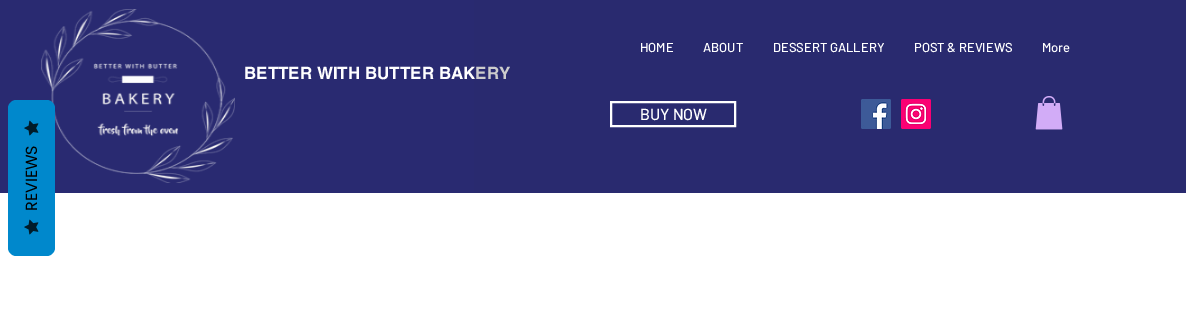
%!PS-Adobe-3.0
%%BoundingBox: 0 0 1186 309
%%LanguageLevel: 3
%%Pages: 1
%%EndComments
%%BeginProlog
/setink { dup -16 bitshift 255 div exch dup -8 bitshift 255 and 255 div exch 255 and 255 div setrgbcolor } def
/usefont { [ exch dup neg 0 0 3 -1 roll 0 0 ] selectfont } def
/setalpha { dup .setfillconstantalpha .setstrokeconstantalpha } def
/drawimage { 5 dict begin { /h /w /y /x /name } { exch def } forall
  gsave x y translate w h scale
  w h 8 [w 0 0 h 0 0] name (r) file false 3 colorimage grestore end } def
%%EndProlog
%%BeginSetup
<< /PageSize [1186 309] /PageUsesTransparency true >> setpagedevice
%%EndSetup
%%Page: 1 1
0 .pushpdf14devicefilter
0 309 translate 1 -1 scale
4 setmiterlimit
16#FFFFFF setink
0 0 1186 309 rectfill
16#262783 setink
474 0 712 193 rectfill
16#292A71 setink
0 0 474 193 rectfill
(img1.raw) 41 9 194 174 drawimage
/helvetica-Bold 17 usefont
16#FFFFFF setink
244 79 moveto (BETTER WITH BUTTER BAKERY) show
0.25 setalpha
16#333333 setink
474 0 712 193 rectfill
/Barlow-Medium 13 usefont
1 setalpha
16#FFFFFF setink
[
    [(HOME) 640 52]
    [(ABOUT) 703 52]
    [(DESSERT GALLERY) 773 52]
    [(POST & REVIEWS) 914 52]
    [(More) 1042 52]
] { aload pop moveto show } forall
2 setlinewidth
611 102 124 24 rectstroke
/Barlow-Medium 16 usefont
640 120 moveto (BUY NOW) show
(img2.raw) 861 99 30 30 drawimage
(img3.raw) 901 99 30 30 drawimage
(img4.raw) 1035 96 28 34 drawimage
16#0088CC setink
8 248 moveto 8 108 lineto 8 104 12 100 16 100 curveto 47 100 lineto 51 100 55 104 55 108 curveto 55 248 lineto 55 252 51 256 47 256 curveto 16 256 lineto 12 256 8 252 8 248 curveto closepath fill
(img5.raw) 24 120 15 16 drawimage
/Poppins-Regular 16 usefont
16#000000 setink
gsave 37 211 translate -90 rotate 0 0 moveto (REVIEWS) show grestore
(img5.raw) 24 219 15 16 drawimage
.poppdf14devicefilter showpage
%%EOF
